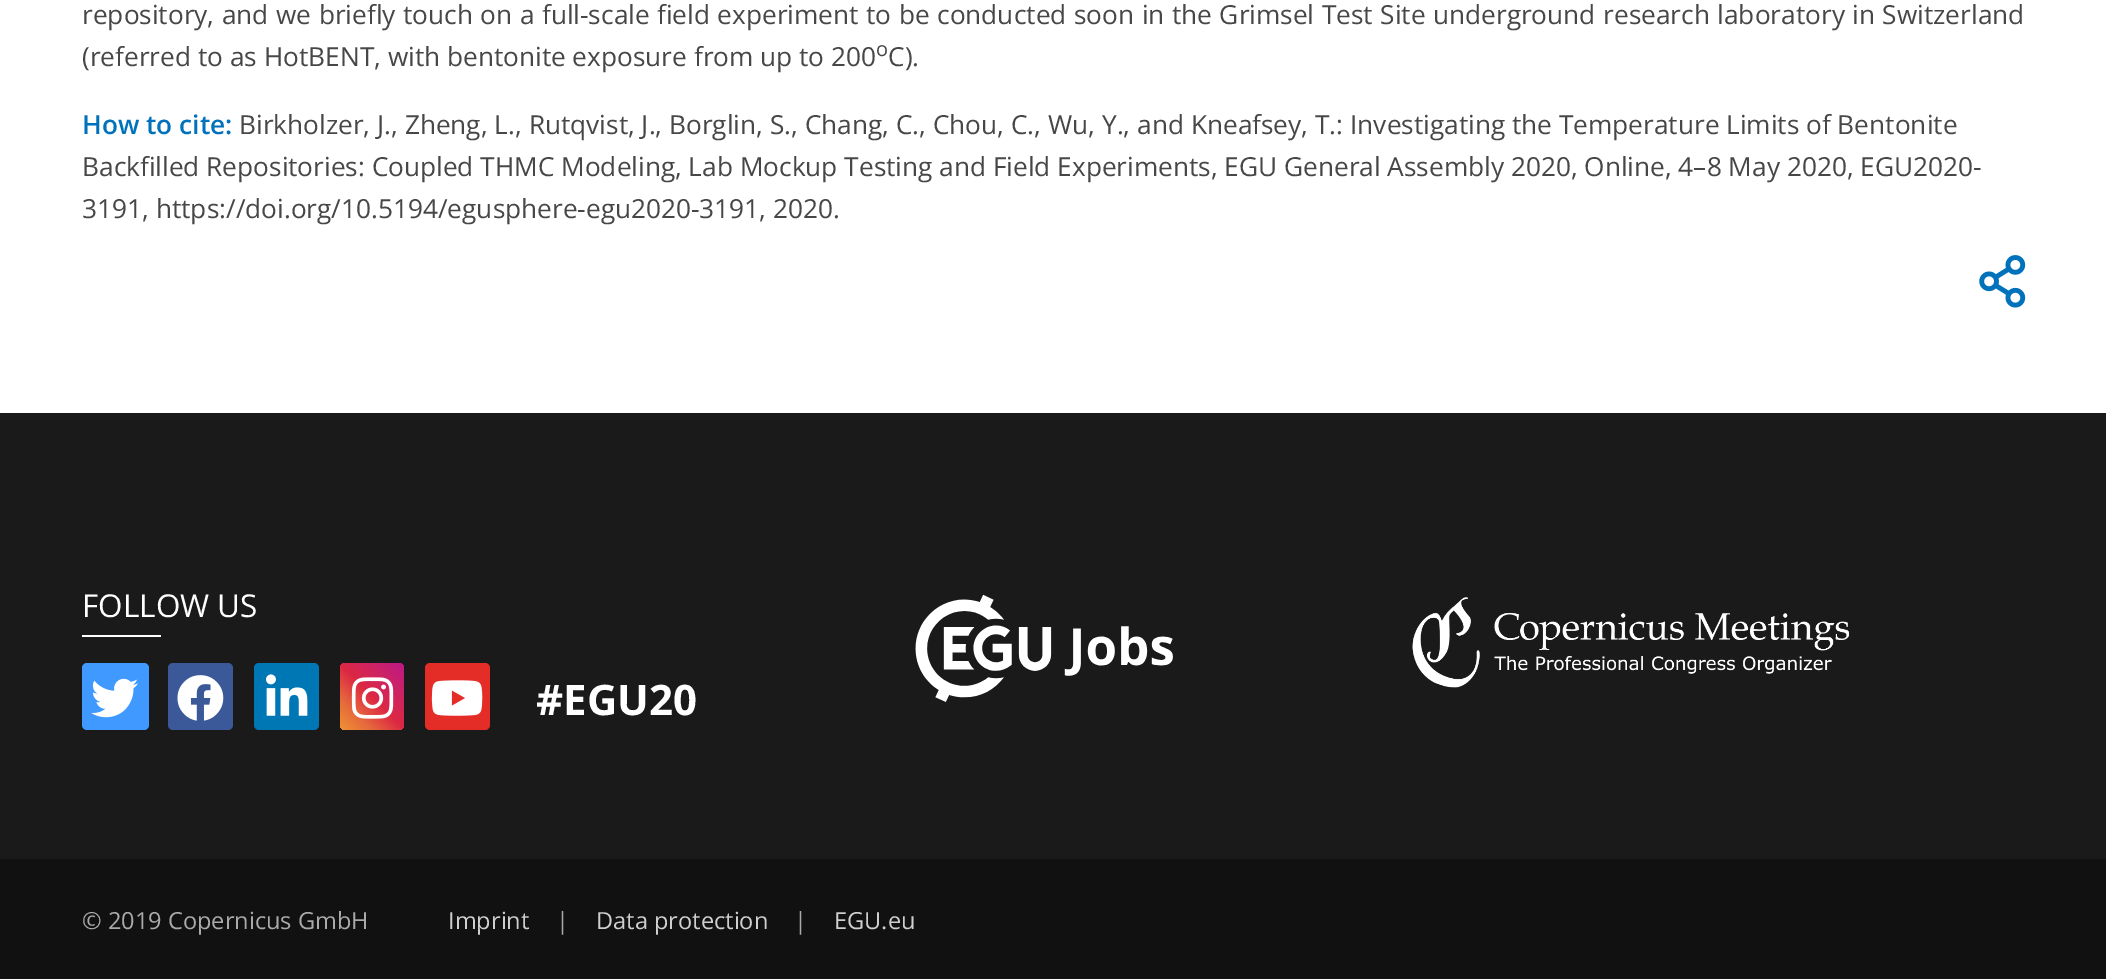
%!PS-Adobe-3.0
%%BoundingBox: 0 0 2106 979
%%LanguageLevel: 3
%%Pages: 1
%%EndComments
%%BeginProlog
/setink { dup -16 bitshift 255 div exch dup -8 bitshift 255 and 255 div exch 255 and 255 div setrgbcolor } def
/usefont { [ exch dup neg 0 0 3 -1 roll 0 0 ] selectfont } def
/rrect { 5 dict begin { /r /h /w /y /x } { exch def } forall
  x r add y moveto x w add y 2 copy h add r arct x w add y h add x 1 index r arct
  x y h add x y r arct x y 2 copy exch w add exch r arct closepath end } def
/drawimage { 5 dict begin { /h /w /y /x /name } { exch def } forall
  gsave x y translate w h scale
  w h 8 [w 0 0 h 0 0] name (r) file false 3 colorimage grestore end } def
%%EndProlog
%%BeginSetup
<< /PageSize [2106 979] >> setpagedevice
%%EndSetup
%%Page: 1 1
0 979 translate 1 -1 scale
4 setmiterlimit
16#FFFFFF setink
0 0 2106 979 rectfill
/OpenSans-Regular 26.25 usefont
16#474747 setink
82 24 moveto 0.7 0 32 (repository, and we briefly touch on a full-scale field experiment to be conducted soon in the Grimsel Test Site underground research laboratory in Switzerland) widthshow
82 66 moveto (\(referred to as HotBENT, with bentonite exposure from up to 200) show
/OpenSans-Regular 20 usefont
876 56 moveto (o) show
/OpenSans-Regular 26.25 usefont
888 66 moveto (C\).) show
/OpenSans-SemiBold 26.25 usefont
16#0072BC setink
82 134 moveto (How to cite:) show
/OpenSans-Regular 26.25 usefont
16#474747 setink
[
    [(Birkholzer, J., Zheng, L., Rutqvist, J., Borglin, S., Chang, C., Chou, C., Wu, Y., and Kneafsey, T.: Investigating the Temperature Limits of Bentonite) 239 134]
    [(Backfilled Repositories: Coupled THMC Modeling, Lab Mockup Testing and Field Experiments, EGU General Assembly 2020, Online, 4–8 May 2020, EGU2020-) 82 176]
    [(3191, https://doi.org/10.5194/egusphere-egu2020-3191, 2020.) 82 218]
] { aload pop moveto show } forall
(img1.raw) 1979 255 47 53 drawimage
16#1A1A1A setink
0 413 2106 446 rectfill
/OpenSans-Regular 31.5 usefont
16#FFFFFF setink
82 617 moveto (FOLLOW US) show
82 635 79 2 rectfill
16#4099FF setink
82 663 67 67 5 rrect fill
(img2.raw) 91 678 48 40 drawimage
16#3B5998 setink
168 663 65 67 5 rrect fill
(img3.raw) 177 675 47 46 drawimage
16#0077B5 setink
254 663 65 67 5 rrect fill
(img4.raw) 266 674 42 42 drawimage
gsave 340 663 64 67 5 rrect clip newpath
<< /ShadingType 2 /ColorSpace /DeviceRGB /Coords [339 729 405 664] /Extend [true true] /Function << /FunctionType 3 /Domain [0 1] /Functions [<< /FunctionType 2 /Domain [0 1] /C0 [0.941 0.58 0.2] /C1 [0.902 0.408 0.235] /N 1 >> << /FunctionType 2 /Domain [0 1] /C0 [0.902 0.408 0.235] /C1 [0.863 0.153 0.263] /N 1 >> << /FunctionType 2 /Domain [0 1] /C0 [0.863 0.153 0.263] /C1 [0.8 0.137 0.4] /N 1 >> << /FunctionType 2 /Domain [0 1] /C0 [0.8 0.137 0.4] /C1 [0.737 0.094 0.533] /N 1 >>] /Bounds [0.25 0.5 0.75] /Encode [0 1 0 1 0 1 0 1] >> >> shfill grestore
(img5.raw) 351 677 43 42 drawimage
16#E52D27 setink
425 663 65 67 5 rrect fill
(img6.raw) 431 680 52 36 drawimage
/OpenSans-Bold 42 usefont
16#FFFFFF setink
536 715 moveto (#EGU20) show
(img7.raw) 915 594 258 108 drawimage
(img8.raw) 1412 597 437 91 drawimage
16#111111 setink
0 859 2106 120 rectfill
/OpenSans-Regular 23.6 usefont
16#AAAAAA setink
82 929 moveto (© 2019 Copernicus GmbH) show
16#CFCFCF setink
448 929 moveto (Imprint) show
16#AAAAAA setink
556 929 moveto (|) show
16#CFCFCF setink
596 929 moveto (Data protection) show
16#AAAAAA setink
794 929 moveto (|) show
16#CFCFCF setink
834 929 moveto (EGU.eu) show
showpage
%%EOF
